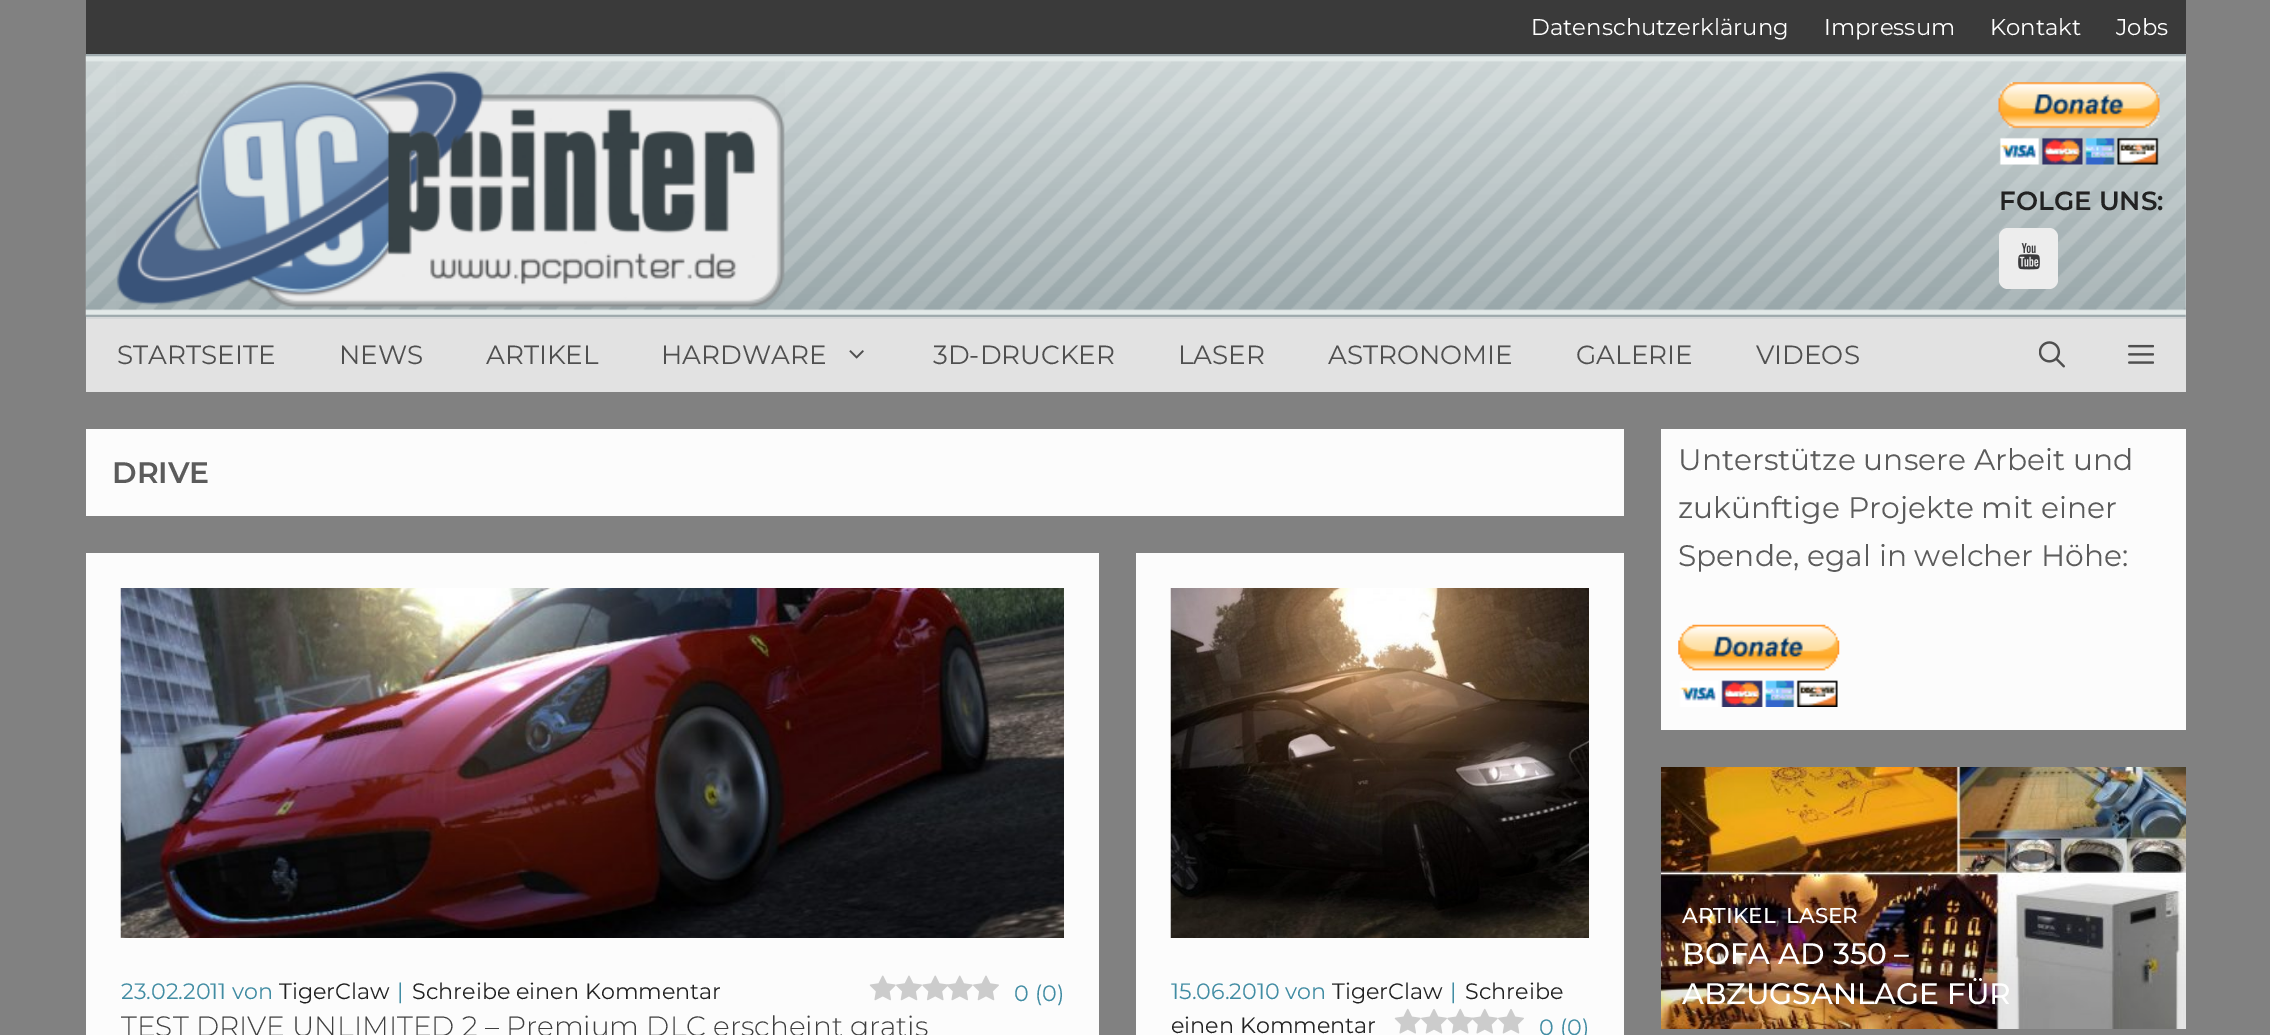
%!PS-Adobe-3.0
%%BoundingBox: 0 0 2270 1035
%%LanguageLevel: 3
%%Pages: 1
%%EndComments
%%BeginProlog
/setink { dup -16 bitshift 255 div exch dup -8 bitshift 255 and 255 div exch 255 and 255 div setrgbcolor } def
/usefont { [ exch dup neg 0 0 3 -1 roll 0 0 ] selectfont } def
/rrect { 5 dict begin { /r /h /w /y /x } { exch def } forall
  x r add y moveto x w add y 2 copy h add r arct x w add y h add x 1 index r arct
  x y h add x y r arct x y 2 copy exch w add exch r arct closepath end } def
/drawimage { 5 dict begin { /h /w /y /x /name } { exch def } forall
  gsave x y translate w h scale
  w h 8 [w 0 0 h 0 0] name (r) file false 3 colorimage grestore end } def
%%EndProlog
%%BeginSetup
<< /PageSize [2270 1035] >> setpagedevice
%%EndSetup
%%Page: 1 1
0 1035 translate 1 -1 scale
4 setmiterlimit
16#818181 setink
0 0 2270 1035 rectfill
16#3A3A3A setink
86 0 2100 54 rectfill
/Montserrat-Regular 22.75 usefont
16#FFFFFF setink
[
    [(Datenschutzerklärung) 1531 35]
    [(Impressum) 1824 35]
    [(Kontakt) 1990 35]
    [(Jobs) 2116 35]
] { aload pop moveto show } forall
16#E5E5E5 setink
86 54 2100 263 rectfill
(img1.raw) 85 54 2101 263 drawimage
(img2.raw) 116 70 669 239 drawimage
(img3.raw) 1998 82 162 83 drawimage
/Montserrat-SemiBold 26.25 usefont
16#222222 setink
1999 210 moveto (FOLGE UNS:) show
16#EDEDED setink
1999 228 59 61 9 rrect fill
(img4.raw) 2018 243 22 27 drawimage
16#E2E2E2 setink
86 319 2100 73 rectfill
16#D4D7D8 setink
86 317 2100 2 rectfill
/Montserrat-Regular 26.25 usefont
16#4F4F4F setink
[
    [(STARTSEITE) 117 364]
    [(NEWS) 339 364]
    [(ARTIKEL) 486 364]
    [(HARDWARE) 661 364]
] { aload pop moveto show } forall
(img5.raw) 849 350 15 9 drawimage
[
    [(3D-DRUCKER) 933 364]
    [(LASER) 1178 364]
    [(ASTRONOMIE) 1328 364]
    [(GALERIE) 1576 364]
    [(VIDEOS) 1756 364]
] { aload pop moveto show } forall
(img6.raw) 2039 341 26 27 drawimage
(img7.raw) 2128 344 26 20 drawimage
16#FCFCFC setink
86 429 1538 87 rectfill
/Montserrat-SemiBold 29.75 usefont
16#5B5B5B setink
112 483 moveto (DRIVE) show
16#FCFCFC setink
86 553 1013 482 rectfill
(img8.raw) 120 588 944 350 drawimage
/Montserrat-Regular 22.25 usefont
16#418CA3 setink
121 999 moveto (23.02.2011 von) show
16#222222 setink
279 999 moveto (TigerClaw) show
16#418CA3 setink
397 999 moveto (|) show
16#222222 setink
412 999 moveto (Schreibe einen Kommentar) show
(img9.raw) 869 975 27 26 drawimage
(img10.raw) 896 975 26 26 drawimage
(img11.raw) 922 975 27 26 drawimage
(img12.raw) 947 975 26 26 drawimage
(img10.raw) 973 975 26 26 drawimage
16#418CA3 setink
1014 1001 moveto (0 \(0\)) show
/Montserrat-Light 28 usefont
16#3F3F3F setink
121 1036 moveto (TEST DRIVE UNLIMITED 2 – Premium DLC erscheint gratis) show
16#FCFCFC setink
1136 553 488 482 rectfill
(img13.raw) 1170 588 419 350 drawimage
/Montserrat-Regular 22.25 usefont
16#418CA3 setink
1450 999 moveto (|) show
16#222222 setink
1465 999 moveto (Schreibe) show
1171 1033 moveto (einen Kommentar) show
16#418CA3 setink
1171 999 moveto (15.06.2010 von) show
16#222222 setink
1332 999 moveto (TigerClaw) show
(img14.raw) 1394 1008 27 26 drawimage
(img15.raw) 1421 1009 26 25 drawimage
(img16.raw) 1447 1008 26 26 drawimage
(img17.raw) 1472 1008 26 26 drawimage
(img15.raw) 1498 1009 26 25 drawimage
16#418CA3 setink
1539 1035 moveto (0 \(0\)) show
16#FCFCFC setink
1661 429 525 301 rectfill
/Montserrat-Regular 29.75 usefont
16#5B5B5B setink
[
    [(Unterstütze unsere Arbeit und) 1678 470]
    [(zukünftige Projekte mit einer) 1678 518]
    [(Spende, egal in welcher Höhe:) 1678 566]
] { aload pop moveto show } forall
(img18.raw) 1678 624 162 83 drawimage
(img19.raw) 1661 767 525 262 drawimage
/Montserrat-Medium 21.5 usefont
16#FFFFFF setink
1682 923 moveto (ARTIKEL) show
/Montserrat-Regular 24 usefont
16#5B5B5B setink
1775 923 moveto (,) show
/Montserrat-Medium 21.5 usefont
16#FFFFFF setink
1786 923 moveto (LASER) show
/Montserrat-Medium 29.75 usefont
1682 964 moveto (BOFA AD 350 –) show
1682 1004 moveto (ABZUGSANLAGE FÜR) show
showpage
%%EOF
